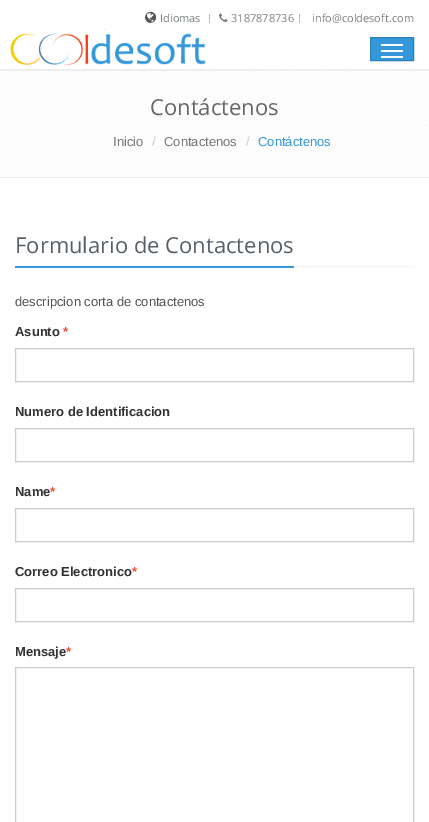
%!PS-Adobe-3.0
%%BoundingBox: 0 0 429 822
%%LanguageLevel: 3
%%Pages: 1
%%EndComments
%%BeginProlog
/setink { dup -16 bitshift 255 div exch dup -8 bitshift 255 and 255 div exch 255 and 255 div setrgbcolor } def
/usefont { [ exch dup neg 0 0 3 -1 roll 0 0 ] selectfont } def
/drawimage { 5 dict begin { /h /w /y /x /name } { exch def } forall
  gsave x y translate w h scale
  w h 8 [w 0 0 h 0 0] name (r) file false 3 colorimage grestore end } def
%%EndProlog
%%BeginSetup
<< /PageSize [429 822] >> setpagedevice
%%EndSetup
%%Page: 1 1
0 822 translate 1 -1 scale
4 setmiterlimit
16#FFFFFF setink
0 0 429 822 rectfill
(img1.raw) 145 11 12 12 drawimage
/OpenSans-Regular 11 usefont
16#7C8082 setink
160 22 moveto (Idiomas) show
16#BBBBBB setink
209 14 1 9 rectfill
(img2.raw) 219 13 9 9 drawimage
16#7C8082 setink
231 22 moveto (3187878736) show
16#BBBBBB setink
299 14 1 9 rectfill
16#7C8082 setink
312 22 moveto (info@coldesoft.com) show
16#EEEEEE setink
0 69 429 2 rectfill
(img3.raw) 10 29 196 36 drawimage
16#3498DB setink
370.5 37.5 moveto 413.5 37.5 lineto 413.5 60.5 lineto 370.5 60.5 lineto closepath gsave fill grestore
16#2980B9 setink
stroke
[
    [381 44 22 2 16#FFFFFF]
    [381 50 22 2 16#FFFFFF]
    [381 56 22 2 16#FFFFFF]
] { aload pop setink rectfill } forall
(img4.raw) 0 71 429 106 drawimage
16#EEEEEE setink
0 177 429 1 rectfill
/OpenSans-Regular 22 usefont
16#666666 setink
150 115 moveto (Contáctenos) show
/LiberationSans-Regular 13 usefont
16#777777 setink
113 146 moveto (Inicio) show
16#CCCCCC setink
152 146 moveto (/) show
16#777777 setink
164 146 moveto (Contactenos) show
16#CCCCCC setink
246 146 moveto (/) show
16#3498DB setink
258 146 moveto (Contáctenos) show
16#E4E9F0 setink
[1 1] 0 setdash
15 266.5 moveto 414 266.5 lineto stroke
16#3498DB setink
15 266 279 2 rectfill
/OpenSans-Regular 22 usefont
16#585F69 setink
15 253 moveto (Formulario de Contactenos) show
/LiberationSans-Regular 13 usefont
16#555555 setink
15 306 moveto (descripcion corta de contactenos) show
/LiberationSans-Bold 13 usefont
16#333333 setink
15 336 moveto (Asunto) show
16#E74C3C setink
63 336 moveto (*) show
16#CCCCCC setink
[] 0 setdash
15.5 348.5 398 33 rectstroke
16#333333 setink
15 416 moveto (Numero de Identificacion) show
16#CCCCCC setink
15.5 428.5 398 33 rectstroke
16#333333 setink
15 496 moveto (Name) show
16#E74C3C setink
50 496 moveto (*) show
16#CCCCCC setink
15.5 508.5 398 33 rectstroke
16#333333 setink
15 576 moveto (Correo Electronico) show
16#E74C3C setink
132 576 moveto (*) show
16#CCCCCC setink
15.5 588.5 398 33 rectstroke
16#333333 setink
15 656 moveto (Mensaje) show
16#E74C3C setink
66 656 moveto (*) show
16#CCCCCC setink
15.5 667.5 398 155 rectstroke
showpage
%%EOF
